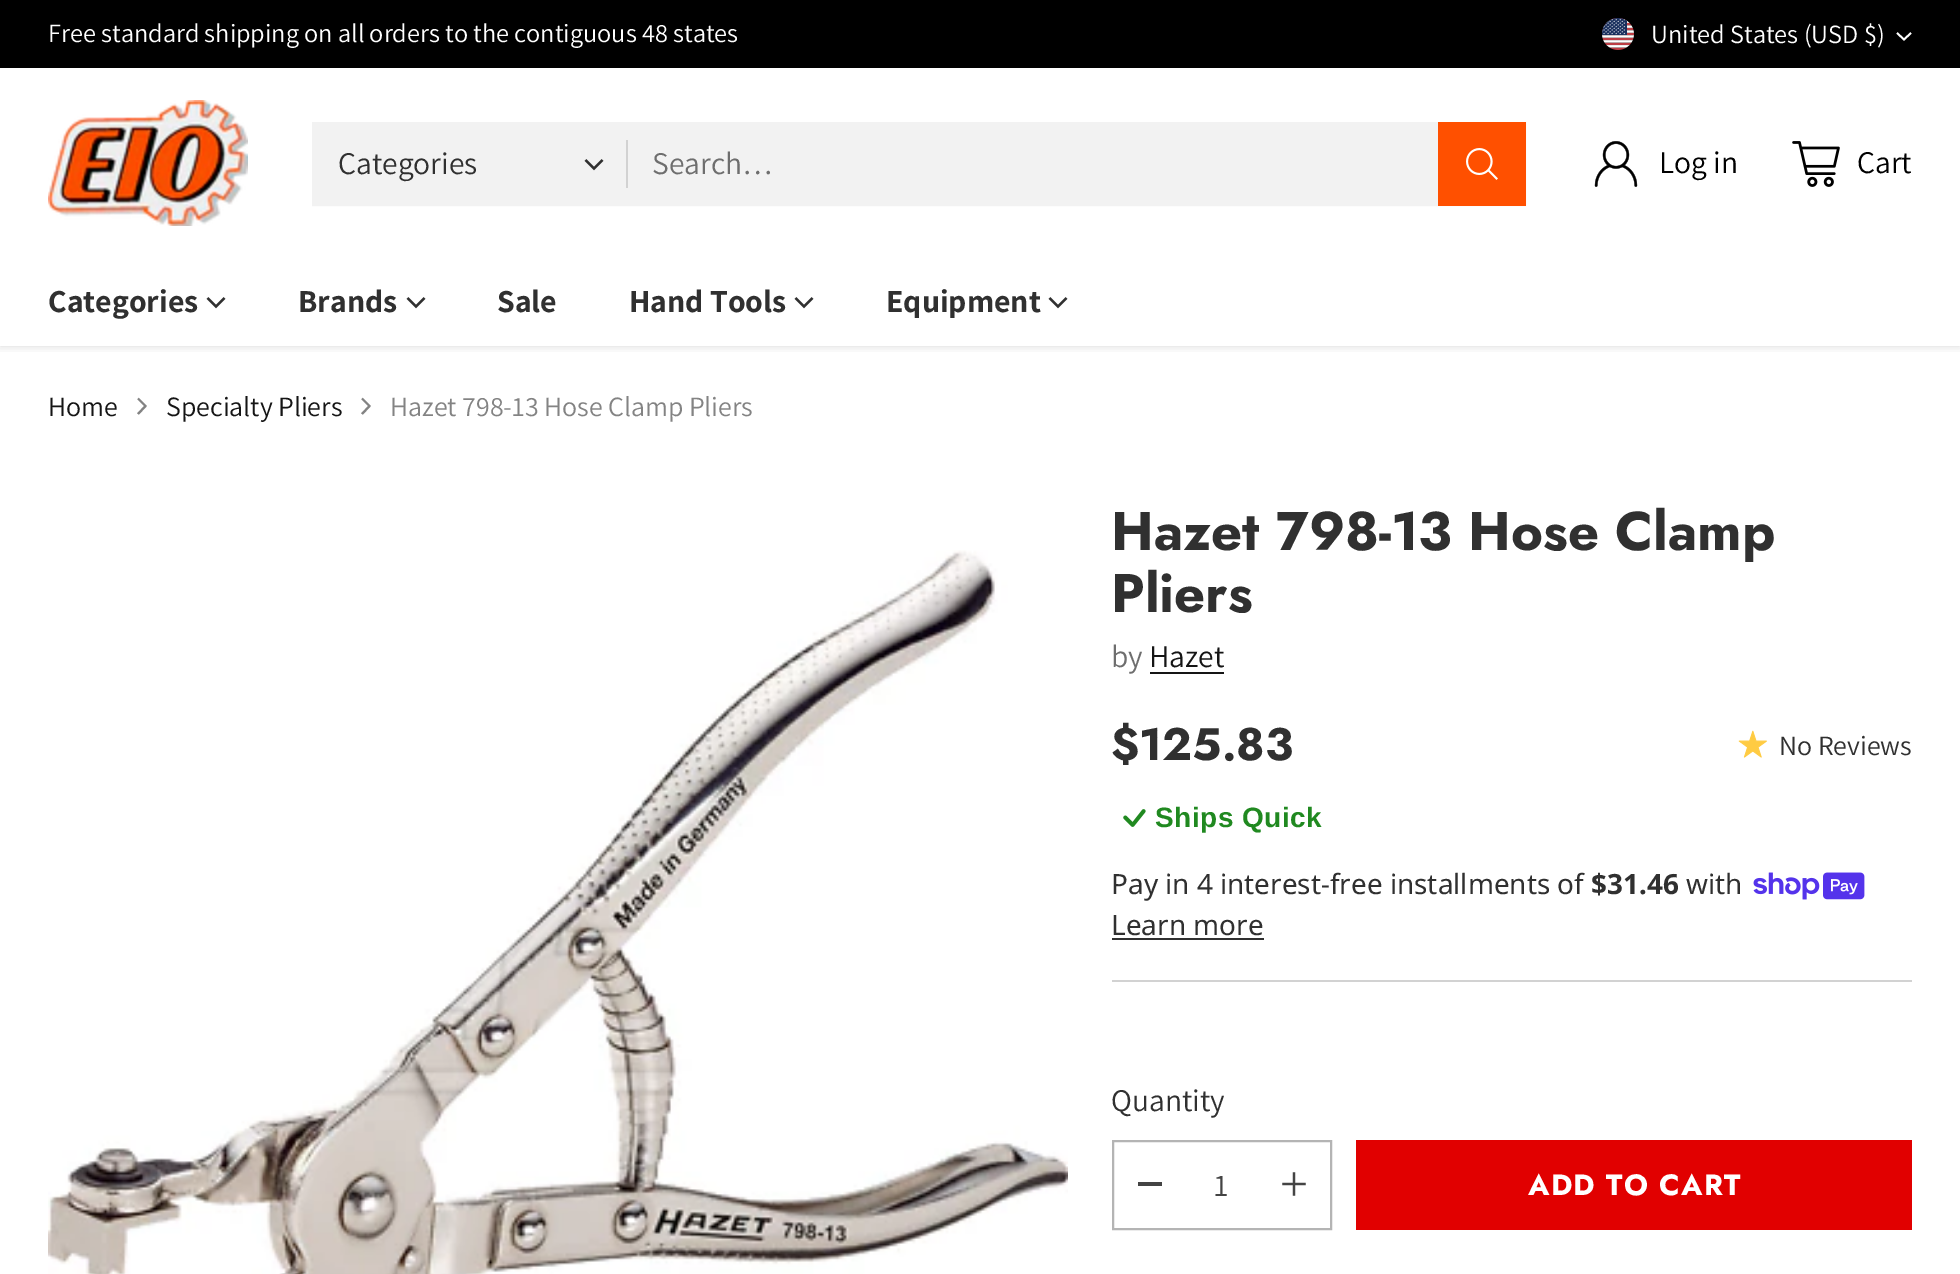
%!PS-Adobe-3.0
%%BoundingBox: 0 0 1960 1274
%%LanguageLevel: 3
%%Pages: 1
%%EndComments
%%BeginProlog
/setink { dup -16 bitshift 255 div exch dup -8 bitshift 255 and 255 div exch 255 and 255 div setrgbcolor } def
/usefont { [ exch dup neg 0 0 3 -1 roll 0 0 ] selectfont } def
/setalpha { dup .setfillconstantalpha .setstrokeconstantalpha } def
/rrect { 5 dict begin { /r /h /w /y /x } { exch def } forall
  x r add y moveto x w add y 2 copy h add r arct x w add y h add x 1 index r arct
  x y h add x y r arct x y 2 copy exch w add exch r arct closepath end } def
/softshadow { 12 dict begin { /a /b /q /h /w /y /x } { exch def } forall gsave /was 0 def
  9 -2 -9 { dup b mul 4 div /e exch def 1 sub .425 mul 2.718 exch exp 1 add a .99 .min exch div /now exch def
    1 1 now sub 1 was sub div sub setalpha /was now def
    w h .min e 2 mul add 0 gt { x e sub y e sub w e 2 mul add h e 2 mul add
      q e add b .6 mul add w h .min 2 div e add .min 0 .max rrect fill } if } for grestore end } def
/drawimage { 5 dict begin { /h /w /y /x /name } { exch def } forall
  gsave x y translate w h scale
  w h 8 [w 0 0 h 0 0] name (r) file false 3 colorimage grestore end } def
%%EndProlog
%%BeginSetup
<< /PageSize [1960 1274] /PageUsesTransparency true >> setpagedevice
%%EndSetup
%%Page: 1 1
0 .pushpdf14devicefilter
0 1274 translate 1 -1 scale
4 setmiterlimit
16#FFFFFF setink
0 0 1960 1274 rectfill
16#000000 setink
0 0 1960 68 rectfill
/Assistant-Regular 26.3 usefont
16#FFFFFF setink
48 42 moveto (Free standard shipping on all orders to the contiguous 48 states) show
(img1.raw) 1602 18 32 32 drawimage
1651 43 moveto (United States \(USD $\)) show
1.8 setlinewidth
1897 33 moveto 1904 39.5 lineto 1911 33 lineto stroke
gsave
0 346 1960 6 rectclip
16#000000 setink
0 258 1960 88 0 5 0.15 softshadow
grestore
0 251 1960 7 rectfill
(img2.raw) 48 100 200 126 drawimage
16#F2F2F2 setink
2 setlinewidth
313 123 1212 82 rectstroke
314 124 1124 80 rectfill
/Assistant-Regular 31.5 usefont
16#303030 setink
338 174 moveto (Categories) show
2.3 setlinewidth
585.5 160 moveto 594 168.5 lineto 602.5 160 lineto stroke
16#D2D2D2 setink
626 140 2 48 rectfill
16#6E6E6E setink
652 174 moveto (Search…) show
16#FF5000 setink
1438 122 88 84 rectfill
(img3.raw) 1466 148 32 32 drawimage
(img4.raw) 1594 141 44 46 drawimage
16#000000 setink
1659 173 moveto (Log in) show
(img5.raw) 1792 141 48 46 drawimage
1857 173 moveto (Cart) show
/Assistant-Bold 32 usefont
16#303030 setink
48 312 moveto (Categories) show
207.5 298 moveto 216 306.5 lineto 224.5 298 lineto stroke
298 312 moveto (Brands) show
407.5 298 moveto 416 306.5 lineto 424.5 298 lineto stroke
497 312 moveto (Sale) show
629 312 moveto (Hand Tools) show
795.5 298 moveto 804 306.5 lineto 812.5 298 lineto stroke
886 312 moveto (Equipment) show
1049.5 298 moveto 1058 306.5 lineto 1066.5 298 lineto stroke
/Assistant-Regular 27.9 usefont
16#151515 setink
48 416 moveto (Home) show
16#838383 setink
2.1 setlinewidth
138 414 moveto 145.5 406 lineto 138 398.5 lineto stroke
16#151515 setink
166 416 moveto (Specialty Pliers) show
16#838383 setink
362 414 moveto 369.5 406 lineto 362 398.5 lineto stroke
390 416 moveto (Hazet 798-13 Hose Clamp Pliers) show
(img6.raw) 48 550 1020 724 drawimage
16#D2D2D2 setink
1112 980 800 2 rectfill
/Jost-Bold 54.25 usefont
16#303030 setink
1111 550 moveto (Hazet 798-13 Hose Clamp) show
1111 612 moveto (Pliers) show
/Assistant-Regular 31.5 usefont
16#6E6E6E setink
1111 667 moveto (by) show
16#151515 setink
1149 667 moveto (Hazet) show
1150 672 74 2 rectfill
/Jost-Bold 45.5 usefont
16#303030 setink
1111 760 moveto ($125.83) show
(img7.raw) 1738 730 29 28 drawimage
/Assistant-Regular 27.9 usefont
1779 755 moveto (No Reviews) show
(img8.raw) 1123 809 23 18 drawimage
/LiberationSans-Bold 28 usefont
16#208920 setink
1155 827 moveto 0.5 0 (Ships Quick) ashow
/NotoSans-Regular 27.9 usefont
16#303030 setink
1111 894 moveto (Pay in 4 interest-free installments of) show
/NotoSans-Bold 27.9 usefont
1591 894 moveto ($31.46) show
/NotoSans-Regular 27.9 usefont
1686 894 moveto (with) show
(img9.raw) 1753 872 112 28 drawimage
1111 935 moveto (Learn more) show
1112 938 152 2 rectfill
/Assistant-Regular 31.5 usefont
1111 1111 moveto (Quantity) show
16#B4B4B4 setink
2 setlinewidth
1113 1141 218 88 rectstroke
16#444444 setink
1138 1182 24 4 rectfill
1214 1196 moveto (1) show
(img10.raw) 1282 1172 24 24 drawimage
16#E10000 setink
1356 1140 556 90 rectfill
/Jost-Bold 29.25 usefont
16#FFFFFF setink
1528 1195 moveto 1.25 0 (ADD TO CART) ashow
.poppdf14devicefilter showpage
%%EOF
